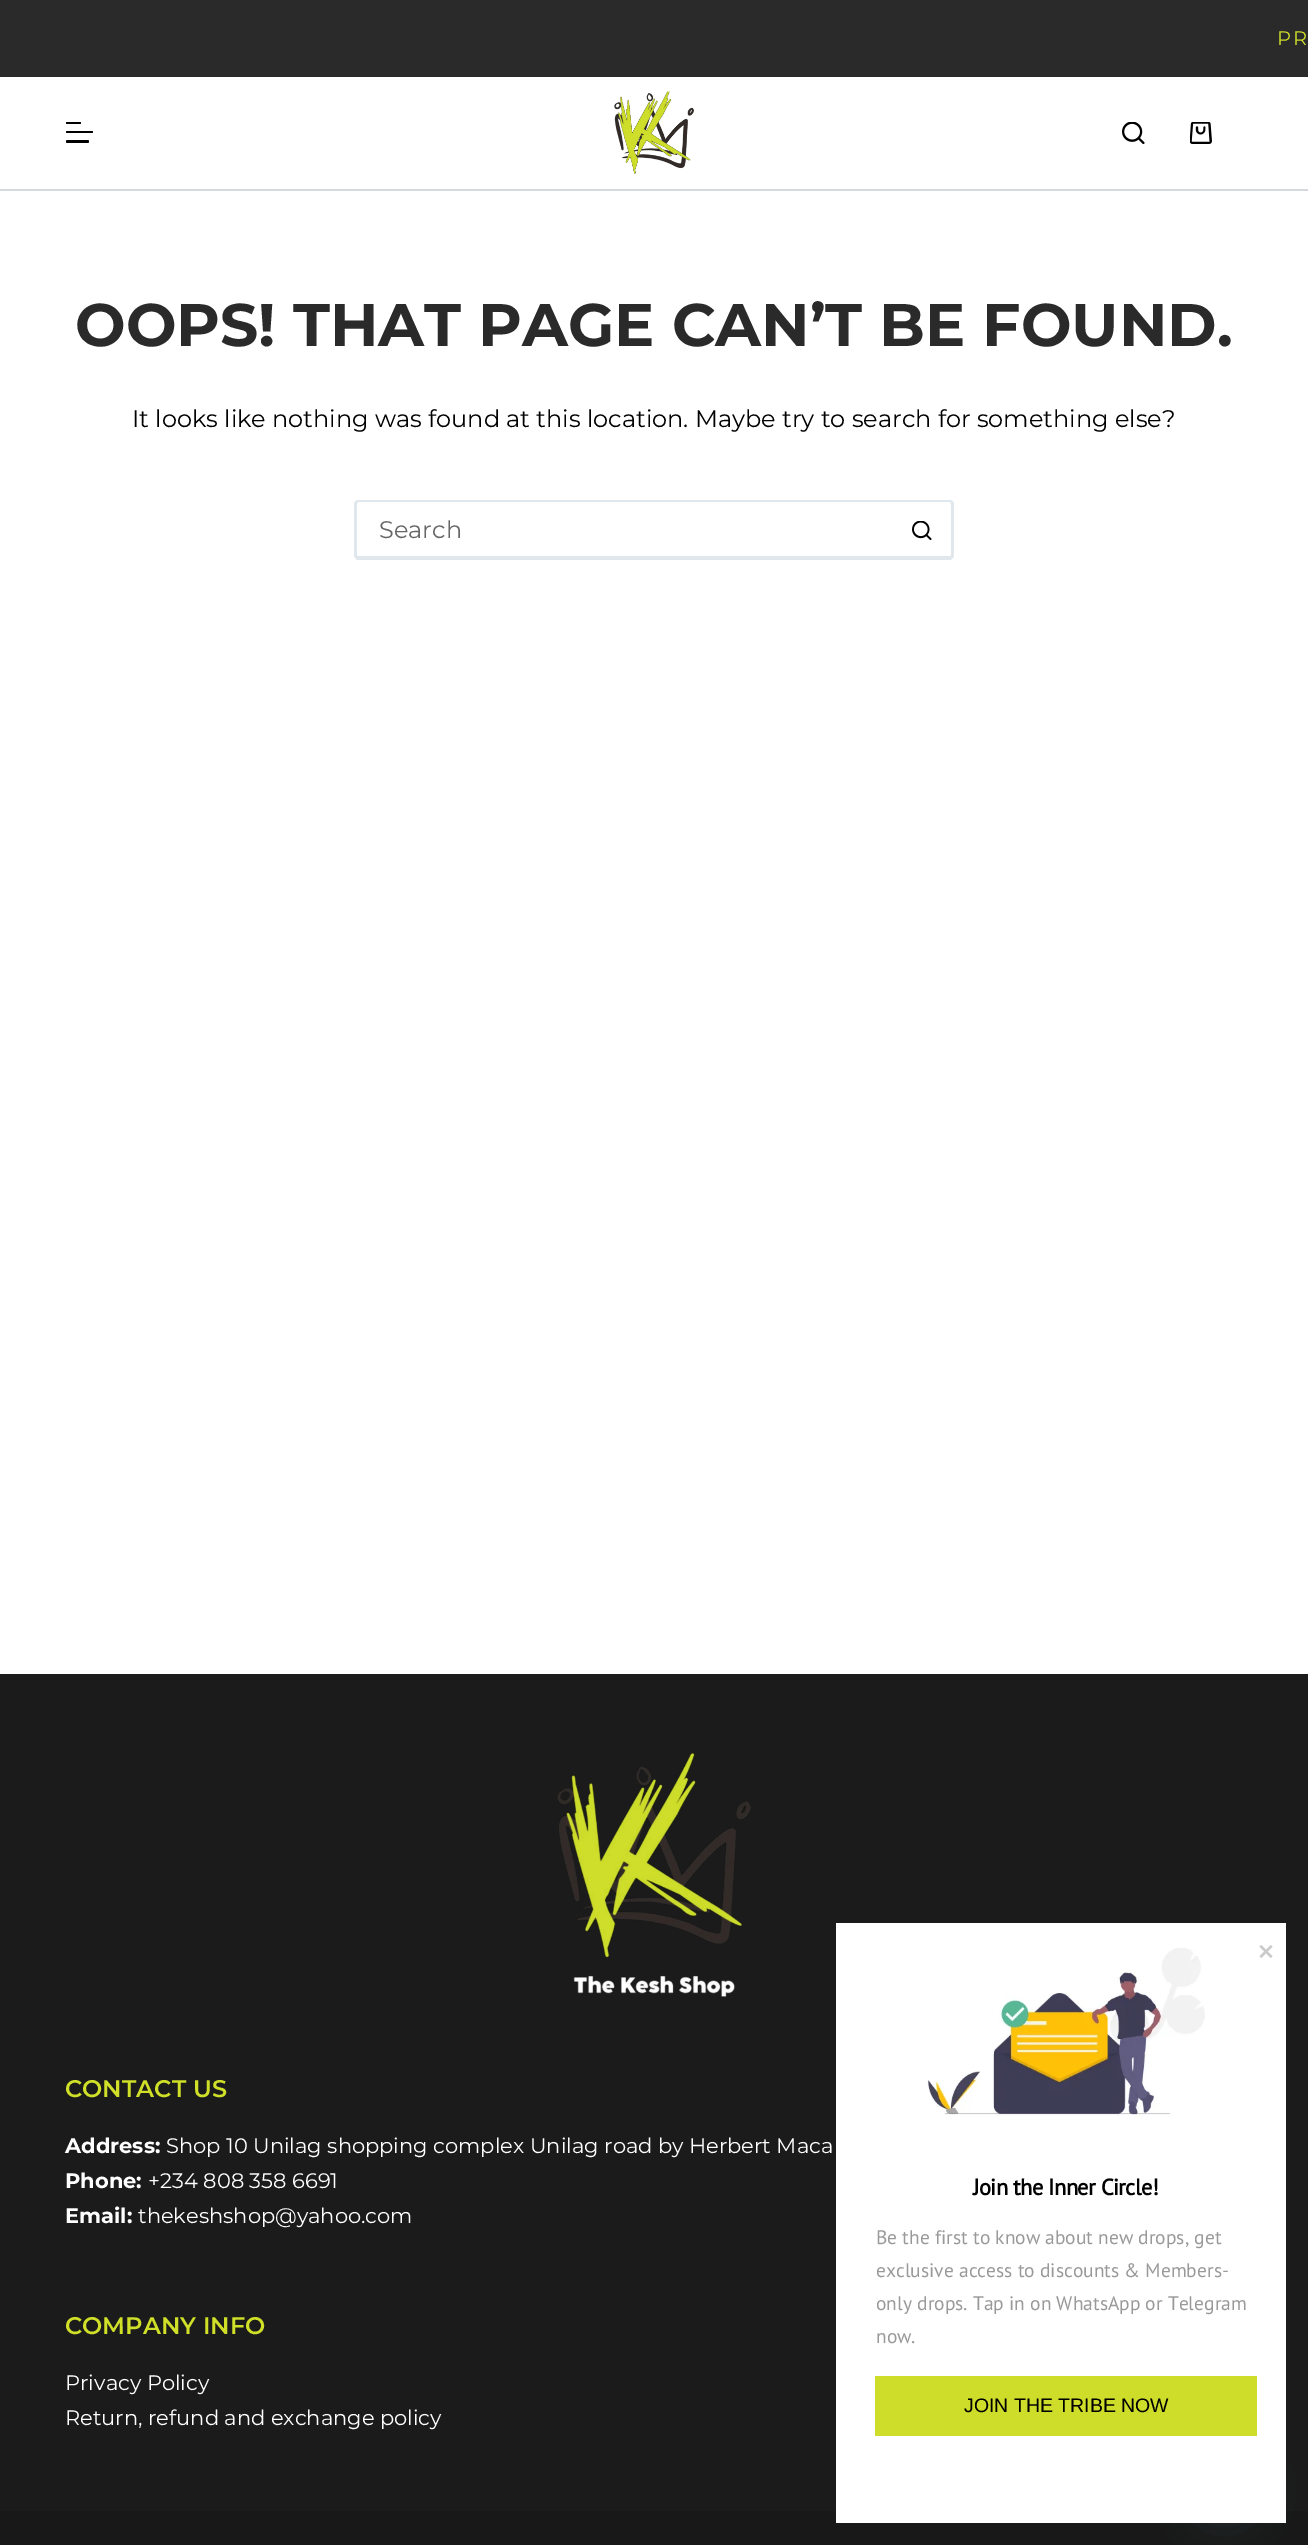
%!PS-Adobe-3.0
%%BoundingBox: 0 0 1308 2545
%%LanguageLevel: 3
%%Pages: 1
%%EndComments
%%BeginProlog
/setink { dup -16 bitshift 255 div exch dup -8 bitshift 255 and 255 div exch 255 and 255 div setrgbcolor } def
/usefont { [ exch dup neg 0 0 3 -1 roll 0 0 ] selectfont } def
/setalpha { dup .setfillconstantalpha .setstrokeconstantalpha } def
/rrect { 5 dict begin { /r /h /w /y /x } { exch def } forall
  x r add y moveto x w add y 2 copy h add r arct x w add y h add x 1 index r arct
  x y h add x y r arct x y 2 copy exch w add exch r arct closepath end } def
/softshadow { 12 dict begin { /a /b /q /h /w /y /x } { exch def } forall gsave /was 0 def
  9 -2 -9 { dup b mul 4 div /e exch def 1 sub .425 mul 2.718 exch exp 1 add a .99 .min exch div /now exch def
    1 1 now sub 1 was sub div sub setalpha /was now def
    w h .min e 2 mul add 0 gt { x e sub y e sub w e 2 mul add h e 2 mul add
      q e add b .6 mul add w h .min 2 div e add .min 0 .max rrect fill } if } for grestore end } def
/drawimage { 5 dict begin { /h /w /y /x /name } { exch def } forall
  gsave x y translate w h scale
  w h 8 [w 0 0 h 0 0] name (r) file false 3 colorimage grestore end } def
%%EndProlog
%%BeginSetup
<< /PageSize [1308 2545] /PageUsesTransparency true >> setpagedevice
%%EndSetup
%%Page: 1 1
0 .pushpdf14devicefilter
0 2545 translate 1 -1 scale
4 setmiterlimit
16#FFFFFF setink
0 0 1308 2545 rectfill
16#2A2A2A setink
0 0 1308 77 rectfill
/Montserrat-Thin 19.5 usefont
16#D0DF28 setink
1277 45 moveto 2 0 (PR) ashow
16#D5D8DC setink
0 189 1308 2 rectfill
16#000000 setink
66 122 15 2 1 rrect fill
66 131 27 2 1 rrect fill
66 140 23 3 1.5 rrect fill
(img1.raw) 614 91 80 83 drawimage
(img2.raw) 1122 122 23 22 drawimage
(img3.raw) 1190 122 22 22 drawimage
/Montserrat-Bold 60 usefont
16#2A2A2A setink
75 346 moveto (OOPS! THAT PAGE CAN’T BE FOUND.) show
/Montserrat-Thin 24 usefont
16#000000 setink
132 427 moveto (It looks like nothing was found at this location. Maybe try to search for something else?) show
16#E1E8ED setink
358 500 moveto 894 500 lineto 894 560 lineto 358 560 lineto 356 560 354 557 354 555 curveto 354 504 lineto 354 502 356 500 358 500 curveto closepath 358 502 moveto 894 502 lineto 894 556 lineto 358 556 lineto 357 555 lineto 357 504 lineto 357 503 358 502 358 502 curveto closepath eofill
16#666666 setink
379 538 moveto (Search) show
16#E1E8ED setink
894 500 moveto 950 500 lineto 952 500 954 502 954 504 curveto 954 555 lineto 954 557 952 560 950 560 curveto 894 560 lineto closepath 894 502 moveto 950 502 lineto 950 502 951 503 951 504 curveto 951 555 lineto 951 556 950 556 950 556 curveto 894 556 lineto closepath eofill
(img4.raw) 912 521 20 19 drawimage
16#FFFFFF setink
2.2 setlinewidth
1 setlinecap
917 520 moveto 922.5 516.5 929 518.5 932 524 curveto stroke
16#1B1B1B setink
0 1674 1308 837 rectfill
(img5.raw) 557 1753 194 244 drawimage
/Montserrat-SemiBold 24 usefont
16#D0DF28 setink
65 2097 moveto (CONTACT US) show
/Montserrat-Bold 21 usefont
16#FFFFFF setink
65 2153 moveto (Address:) show
/Montserrat-Thin 21 usefont
166 2153 moveto (Shop 10 Unilag shopping complex Unilag road by Herbert Maca) show
/Montserrat-Bold 21 usefont
65 2188 moveto (Phone:) show
/Montserrat-Thin 21 usefont
148 2188 moveto (+234 808 358 6691) show
/Montserrat-Bold 21 usefont
65 2223 moveto (Email:) show
/Montserrat-Thin 21 usefont
138 2223 moveto (thekeshshop@yahoo.com) show
/Montserrat-SemiBold 24 usefont
16#D0DF28 setink
65 2334 moveto (COMPANY INFO) show
/Montserrat-Thin 21 usefont
16#FFFFFF setink
65 2390 moveto (Privacy Policy) show
65 2425 moveto (Return, refund and exchange policy) show
16#181818 setink
0 2511 1308 34 rectfill
16#49687E setink
1184 2451 81 81 40.5 18 0.16 softshadow
16#FFFFFF setink
836 1923 450 600 rectfill
(img6.raw) 1259 1945 14 13 drawimage
(img7.raw) 927 1948 278 170 drawimage
/PTSans-Bold 22.5 usefont
16#000000 setink
973 2195 moveto -0.6 0 (Join the Inner Circle!) ashow
/PTSans-Regular 19.5 usefont
16#999999 setink
[
    [(Be the first to know about new drops, get) 876 2244]
    [(exclusive access to discounts & Members-) 876 2277]
    [(only drops. Tap in on WhatsApp or Telegram) 876 2310]
    [(now.) 876 2343]
] { aload pop moveto show } forall
16#CEDD2A setink
875 2376 382 60 rectfill
/LiberationSans-Regular 19.5 usefont
16#000000 setink
964 2412 moveto (JOIN THE TRIBE NOW) show
.poppdf14devicefilter showpage
%%EOF
